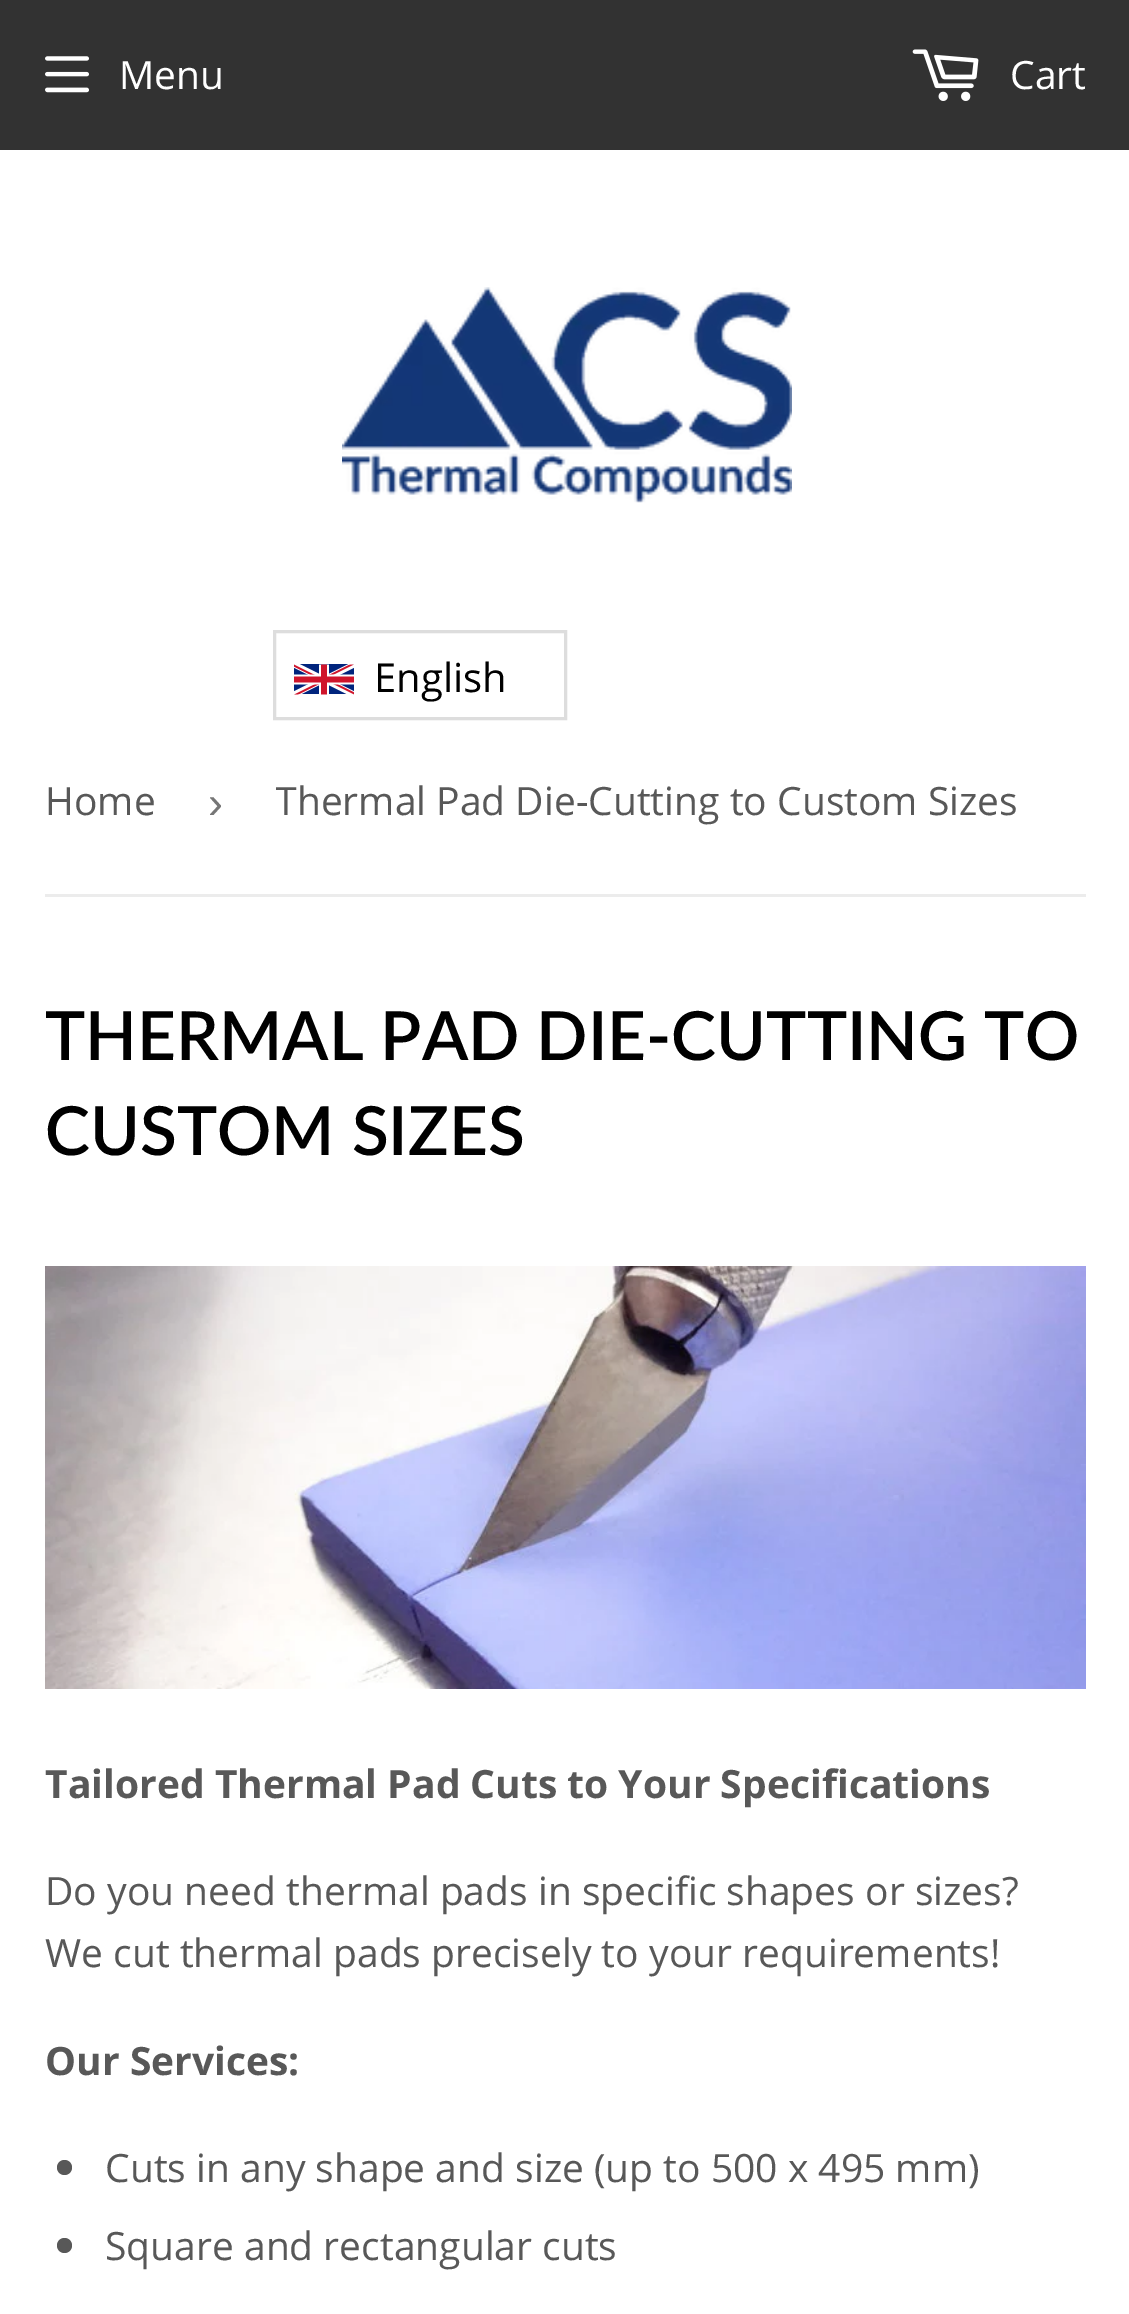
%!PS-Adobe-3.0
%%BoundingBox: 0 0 1129 2314
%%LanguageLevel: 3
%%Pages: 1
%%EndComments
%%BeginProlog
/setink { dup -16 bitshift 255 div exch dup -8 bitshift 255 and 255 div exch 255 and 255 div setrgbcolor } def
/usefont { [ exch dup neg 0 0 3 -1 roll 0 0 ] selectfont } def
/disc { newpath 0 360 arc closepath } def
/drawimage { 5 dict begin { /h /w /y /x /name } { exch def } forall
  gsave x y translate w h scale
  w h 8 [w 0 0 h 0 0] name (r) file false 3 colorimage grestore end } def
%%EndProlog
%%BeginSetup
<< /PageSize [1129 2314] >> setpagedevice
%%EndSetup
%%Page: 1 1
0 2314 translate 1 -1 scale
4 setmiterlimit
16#FFFFFF setink
0 0 1129 2314 rectfill
16#323232 setink
0 0 1129 150 rectfill
(img1.raw) 45 56 44 37 drawimage
/OpenSans-Regular 39 usefont
16#FFFFFF setink
119 89 moveto (Menu) show
(img2.raw) 912 49 67 52 drawimage
1010 89 moveto (Cart) show
(img3.raw) 342 287 450 216 drawimage
16#DDDDDD setink
3 setlinewidth
274.5 631.5 291 87 rectstroke
(img4.raw) 294 664 60 31 drawimage
/OpenSans-Regular 40 usefont
16#000000 setink
374 692 moveto (English) show
16#ECECEC setink
45 894 1041 3 rectfill
/OpenSans-Regular 39 usefont
16#585858 setink
45 815 moveto (Home) show
/LiberationSans-Regular 45 usefont
16#767676 setink
208 818 moveto (›) show
gsave
276 726 762 153 rectclip
/OpenSans-Regular 39 usefont
16#585858 setink
275 815 moveto (Thermal Pad Die-Cutting to Custom Sizes) show
grestore
/Lato-SemiBold 67.6 usefont
16#000000 setink
45 1060 moveto (THERMAL PAD DIE-CUTTING TO) show
45 1155 moveto (CUSTOM SIZES) show
(img5.raw) 45 1266 1041 423 drawimage
/OpenSans-Bold 39 usefont
16#585858 setink
45 1798 moveto (Tailored Thermal Pad Cuts to Your Specifications) show
/OpenSans-Regular 39 usefont
45 1905 moveto (Do you need thermal pads in specific shapes or sizes?) show
45 1967 moveto (We cut thermal pads precisely to your requirements!) show
/OpenSans-Bold 39 usefont
45 2075 moveto (Our Services:) show
64.5 2167.5 7.5 disc fill
/OpenSans-Regular 39 usefont
105 2182 moveto (Cuts in any shape and size \(up to 500 x 495 mm\)) show
64.5 2245.5 7.5 disc fill
105 2260 moveto (Square and rectangular cuts) show
showpage
%%EOF
